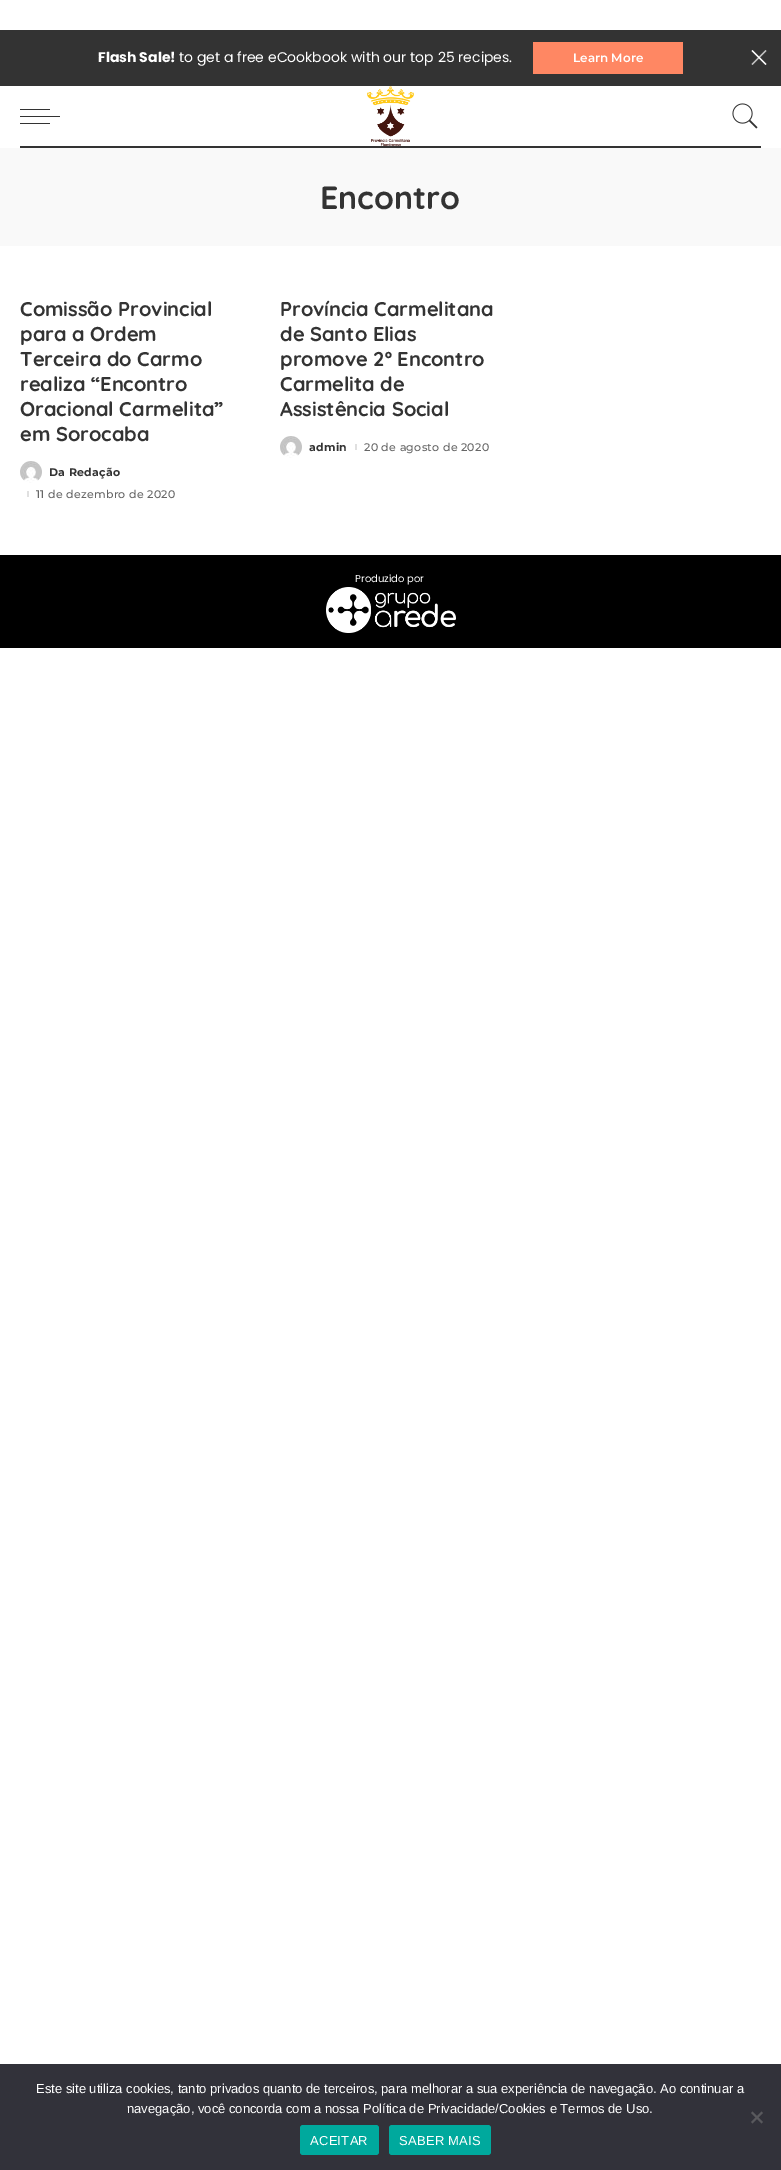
%!PS-Adobe-3.0
%%BoundingBox: 0 0 781 2170
%%LanguageLevel: 3
%%Pages: 1
%%EndComments
%%BeginProlog
/setink { dup -16 bitshift 255 div exch dup -8 bitshift 255 and 255 div exch 255 and 255 div setrgbcolor } def
/usefont { [ exch dup neg 0 0 3 -1 roll 0 0 ] selectfont } def
/rrect { 5 dict begin { /r /h /w /y /x } { exch def } forall
  x r add y moveto x w add y 2 copy h add r arct x w add y h add x 1 index r arct
  x y h add x y r arct x y 2 copy exch w add exch r arct closepath end } def
/drawimage { 5 dict begin { /h /w /y /x /name } { exch def } forall
  gsave x y translate w h scale
  w h 8 [w 0 0 h 0 0] name (r) file false 3 colorimage grestore end } def
%%EndProlog
%%BeginSetup
<< /PageSize [781 2170] >> setpagedevice
%%EndSetup
%%Page: 1 1
0 2170 translate 1 -1 scale
4 setmiterlimit
16#FFFFFF setink
0 0 781 2170 rectfill
16#333333 setink
0 30 781 56 rectfill
/Poppins-Bold 14 usefont
16#FFFFFF setink
98 62 moveto (Flash Sale!) show
/Poppins-Regular 14 usefont
179 62 moveto (to get a free eCookbook with our top 25 recipes.) show
16#FF8763 setink
533 42 150 32 rectfill
/Montserrat-SemiBold 12 usefont
16#FFFFFF setink
573 62 moveto (Learn More) show
16#C2C2C2 setink
751.5 64 moveto 765.5 50 lineto 766.5 51 lineto 752.5 65 lineto closepath fill
16#FFFFFF setink
752.5 50 moveto 766.5 64 lineto 765.5 65 lineto 751.5 51 lineto closepath fill
[
    [20 116 40 1 16#333333]
    [20 109 30 1 16#333333]
    [20 123 30 1 16#333333]
] { aload pop setink rectfill } forall
(img1.raw) 367 86 47 60 drawimage
(img2.raw) 732 103 26 26 drawimage
20 146 741 2 rectfill
16#F9F9F9 setink
0 148 781 98 rectfill
/Quicksand-Bold 32 usefont
16#333333 setink
320 209 moveto (Encontro) show
/Quicksand-Bold 20 usefont
[
    [(Comissão Provincial) 20 316]
    [(para a Ordem) 20 341]
    [(Terceira do Carmo) 20 366]
    [(realiza “Encontro) 20 391]
    [(Oracional Carmelita”) 20 416]
    [(em Sorocaba) 20 441]
] { aload pop moveto show } forall
(img3.raw) 20 461 22 22 drawimage
/Montserrat-Bold 11 usefont
49 476 moveto 0.3 0 (Da Redação) ashow
16#E0E0E0 setink
27 491 2 6 rectfill
/Montserrat-Medium 11 usefont
16#666666 setink
36 498 moveto 0.3 0 (11 de dezembro de 2020) ashow
/Quicksand-Bold 20 usefont
16#333333 setink
[
    [(Província Carmelitana) 280 316]
    [(de Santo Elias) 280 341]
    [(promove 2º Encontro) 280 366]
    [(Carmelita de) 280 391]
    [(Assistência Social) 280 416]
] { aload pop moveto show } forall
(img3.raw) 280 436 22 22 drawimage
/Montserrat-Bold 11 usefont
309 451 moveto 0.3 0 (admin) ashow
16#E0E0E0 setink
355 444 2 6 rectfill
/Montserrat-Medium 11 usefont
16#666666 setink
364 451 moveto 0.3 0 (20 de agosto de 2020) ashow
16#000000 setink
0 555 781 93 rectfill
/Poppins-Regular 10 usefont
16#FFFFFF setink
355 582 moveto (Produzido por) show
(img4.raw) 326 587 130 46 drawimage
16#32323A setink
0 2064 781 106 rectfill
/LiberationSans-Regular 13 usefont
16#FFFFFF setink
36 2093 moveto (Este site utiliza cookies, tanto privados quanto de terceiros, para melhorar a sua experiência de navegação. Ao continuar a) show
127 2113 moveto (navegação, você concorda com a nossa Política de Privacidade/Cookies e Termos de Uso.) show
16#59595D setink
761.5 2111.5 moveto 763 2113 lineto 752.5 2123.5 lineto 751 2122 lineto closepath fill
751 2113 moveto 752.5 2111.5 lineto 763 2122 lineto 761.5 2123.5 lineto closepath fill
16#00A99D setink
300 2125 79 30 3 rrect fill
16#FFFFFF setink
310 2145 moveto 0.25 0 (ACEITAR) ashow
16#00A99D setink
389 2125 102 30 3 rrect fill
16#FFFFFF setink
399 2145 moveto 0.25 0 (SABER MAIS) ashow
showpage
%%EOF
